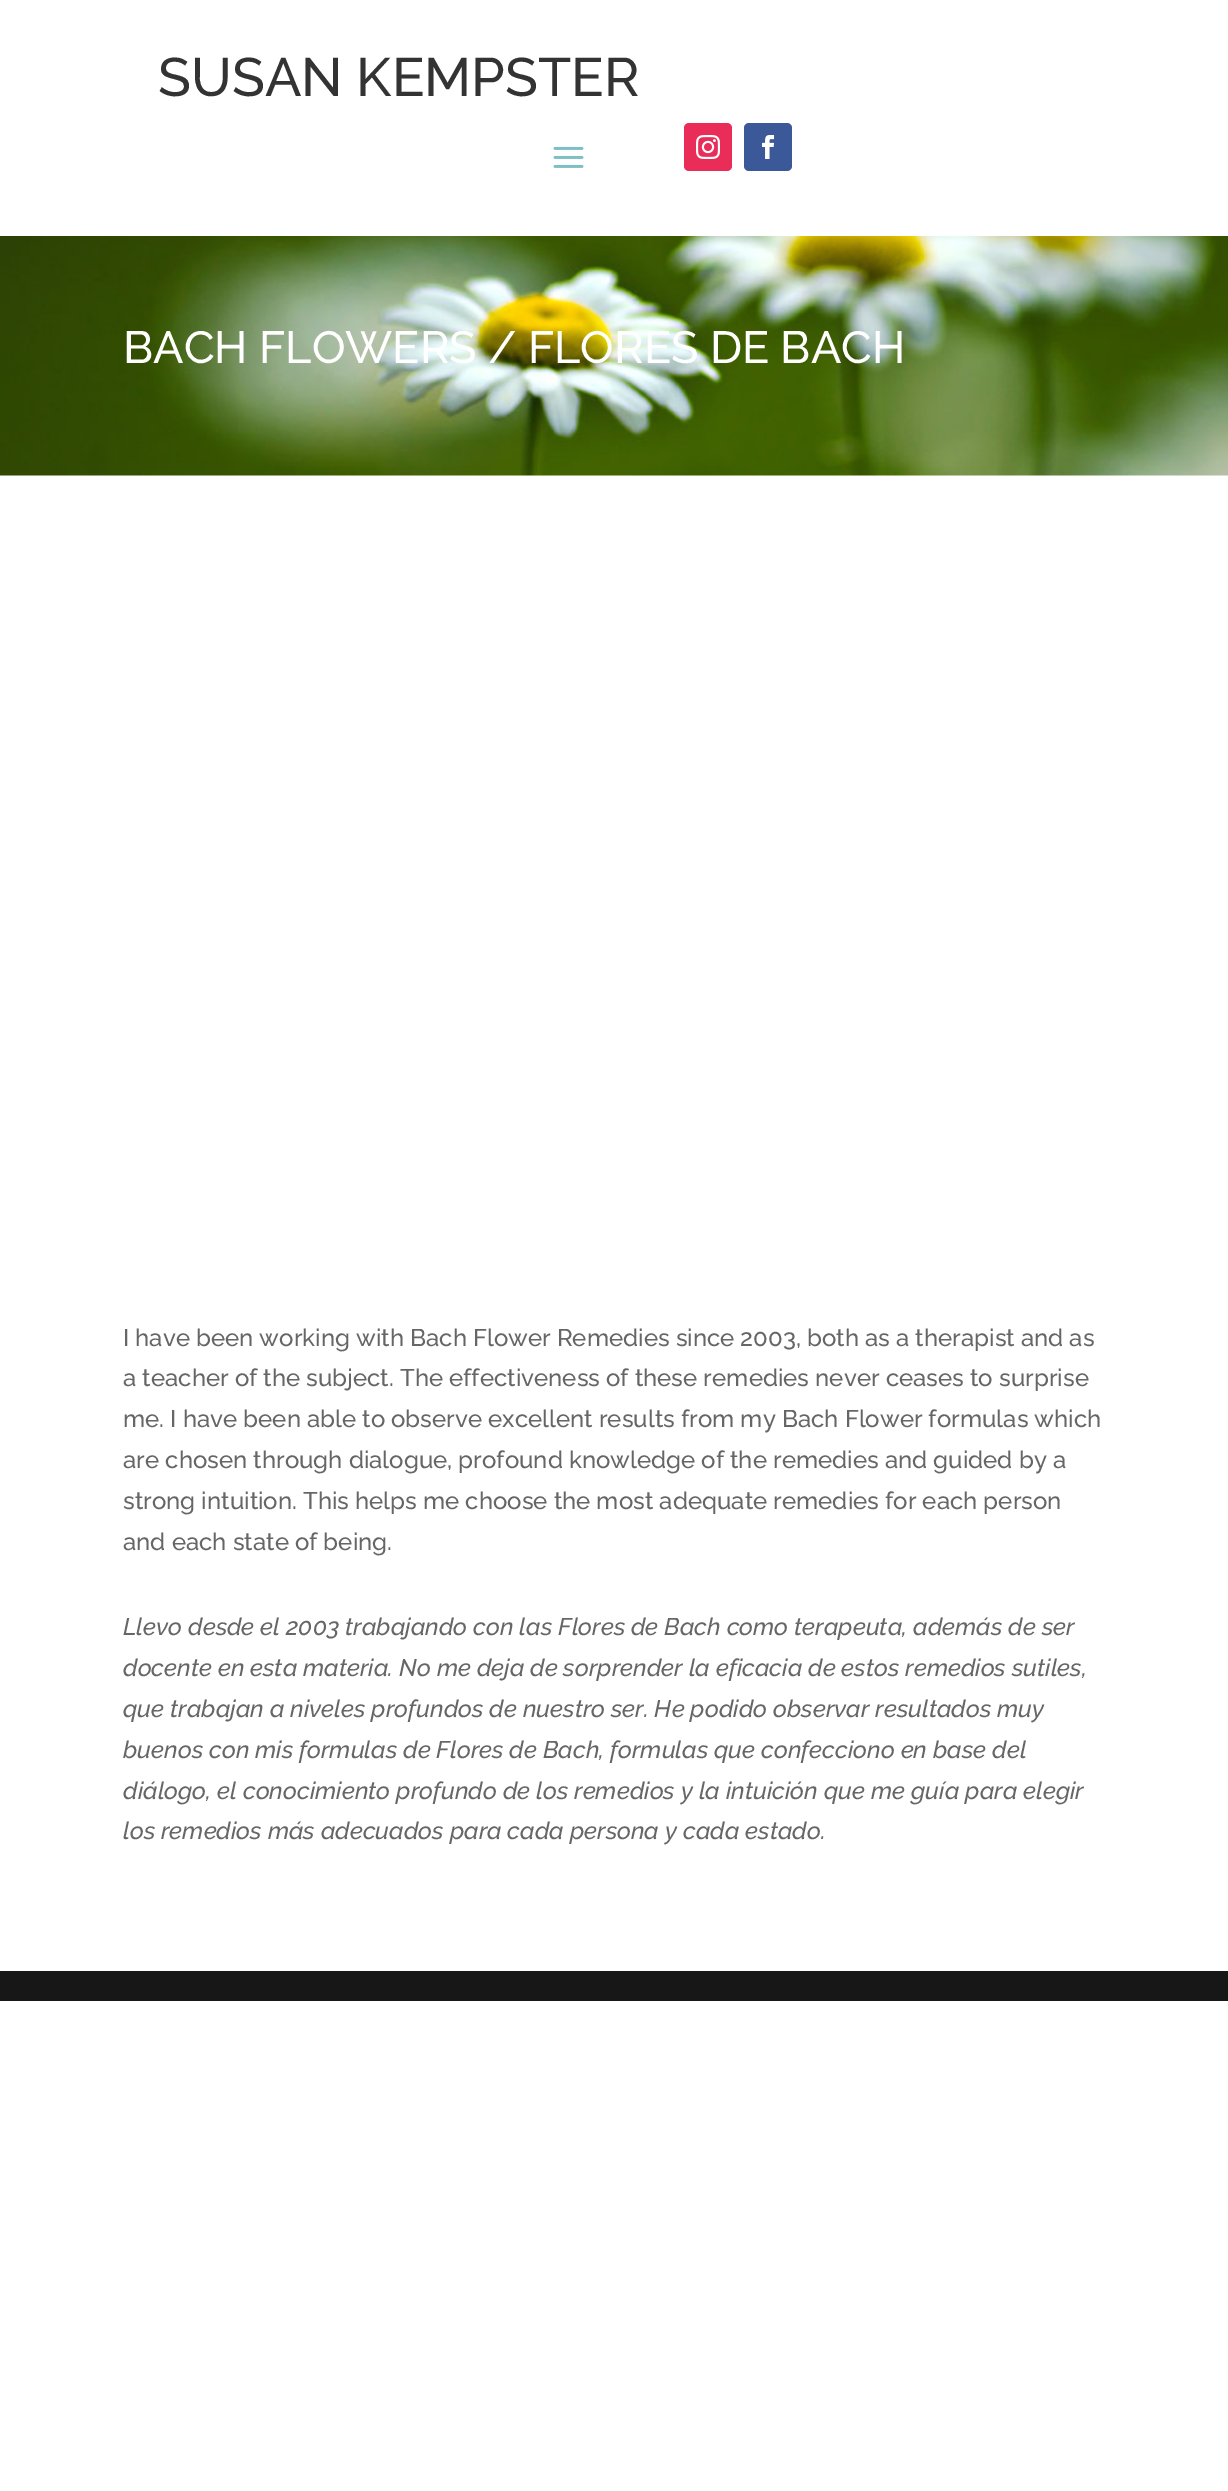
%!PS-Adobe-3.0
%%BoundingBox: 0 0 1228 2491
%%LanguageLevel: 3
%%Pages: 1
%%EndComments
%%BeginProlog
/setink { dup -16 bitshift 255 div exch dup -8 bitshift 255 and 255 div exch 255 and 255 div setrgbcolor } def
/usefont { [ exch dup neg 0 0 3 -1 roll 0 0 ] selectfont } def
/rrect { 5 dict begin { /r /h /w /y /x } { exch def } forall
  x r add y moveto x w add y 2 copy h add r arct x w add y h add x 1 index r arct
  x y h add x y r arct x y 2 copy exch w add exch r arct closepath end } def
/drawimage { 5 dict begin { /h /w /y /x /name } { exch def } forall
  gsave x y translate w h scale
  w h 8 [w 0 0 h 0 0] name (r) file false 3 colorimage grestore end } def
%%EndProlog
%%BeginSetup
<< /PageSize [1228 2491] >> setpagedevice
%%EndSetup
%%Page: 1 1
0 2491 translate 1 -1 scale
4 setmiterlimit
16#FFFFFF setink
0 0 1228 2491 rectfill
/Raleway-Thin 54 usefont
16#333333 setink
158 96 moveto (SUSAN KEMPSTER) show
(img1.raw) 553 146 31 22 drawimage
16#EA2C59 setink
684 123 48 48 5 rrect fill
(img2.raw) 696 135 24 24 drawimage
16#3B5998 setink
744 123 48 48 5 rrect fill
(img3.raw) 762 135 13 24 drawimage
(img4.raw) 0 236 1228 240 drawimage
/Raleway-Thin 45 usefont
16#FFFFFF setink
123 363 moveto (BACH FLOWERS / FLORES DE BACH) show
/Raleway-Thin 24 usefont
16#666666 setink
[
    [(I have been working with Bach Flower Remedies since 2003, both as a therapist and as) 123 1346]
    [(a teacher of the subject. The effectiveness of these remedies never ceases to surprise) 123 1386]
    [(me. I have been able to observe excellent results from my Bach Flower formulas which) 123 1427]
    [(are chosen through dialogue, profound knowledge of the remedies and guided by a) 123 1468]
    [(strong intuition. This helps me choose the most adequate remedies for each person) 123 1509]
    [(and each state of being.) 123 1550]
] { aload pop moveto show } forall
/Raleway-ThinItalic 24 usefont
[
    [(Llevo desde el 2003 trabajando con las Flores de Bach como terapeuta, además de ser) 123 1635]
    [(docente en esta materia. No me deja de sorprender la eficacia de estos remedios sutiles,) 123 1676]
    [(que trabajan a niveles profundos de nuestro ser. He podido observar resultados muy) 123 1717]
    [(buenos con mis formulas de Flores de Bach, formulas que confecciono en base del) 123 1758]
    [(diálogo, el conocimiento profundo de los remedios y la intuición que me guía para elegir) 123 1799]
    [(los remedios más adecuados para cada persona y cada estado.) 123 1839]
] { aload pop moveto show } forall
16#171717 setink
0 1971 1228 30 rectfill
showpage
%%EOF
